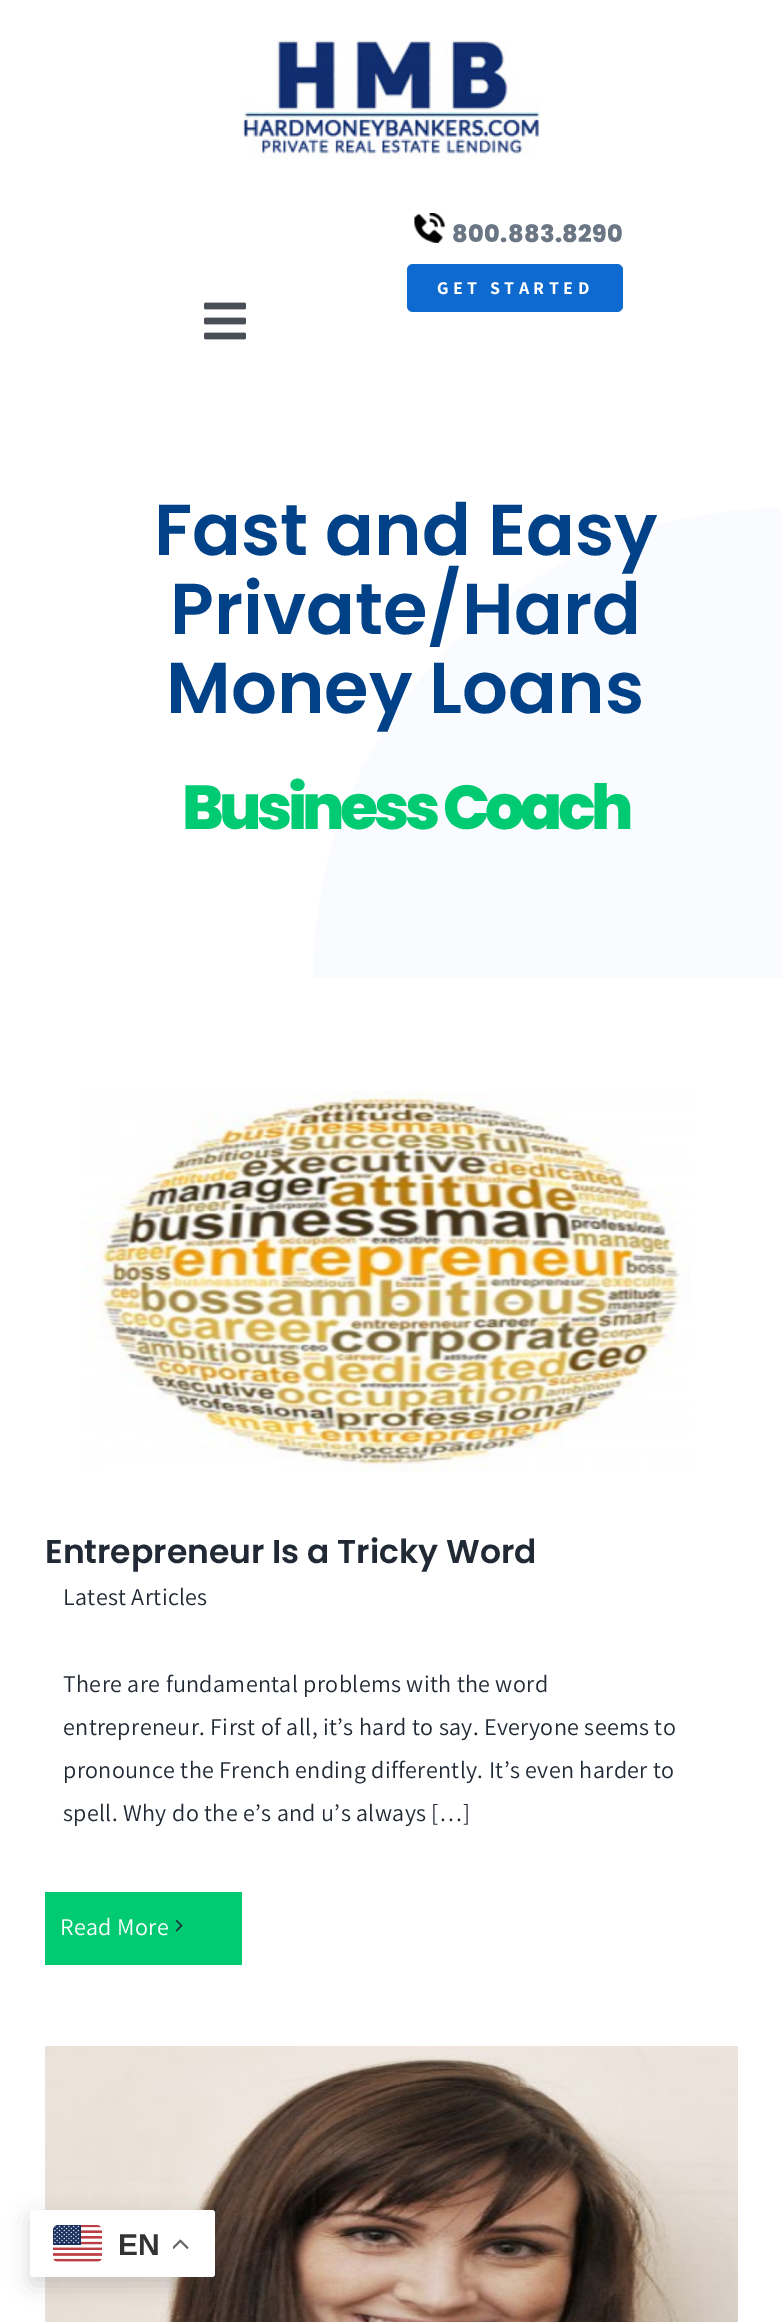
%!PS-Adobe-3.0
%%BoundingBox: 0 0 782 2322
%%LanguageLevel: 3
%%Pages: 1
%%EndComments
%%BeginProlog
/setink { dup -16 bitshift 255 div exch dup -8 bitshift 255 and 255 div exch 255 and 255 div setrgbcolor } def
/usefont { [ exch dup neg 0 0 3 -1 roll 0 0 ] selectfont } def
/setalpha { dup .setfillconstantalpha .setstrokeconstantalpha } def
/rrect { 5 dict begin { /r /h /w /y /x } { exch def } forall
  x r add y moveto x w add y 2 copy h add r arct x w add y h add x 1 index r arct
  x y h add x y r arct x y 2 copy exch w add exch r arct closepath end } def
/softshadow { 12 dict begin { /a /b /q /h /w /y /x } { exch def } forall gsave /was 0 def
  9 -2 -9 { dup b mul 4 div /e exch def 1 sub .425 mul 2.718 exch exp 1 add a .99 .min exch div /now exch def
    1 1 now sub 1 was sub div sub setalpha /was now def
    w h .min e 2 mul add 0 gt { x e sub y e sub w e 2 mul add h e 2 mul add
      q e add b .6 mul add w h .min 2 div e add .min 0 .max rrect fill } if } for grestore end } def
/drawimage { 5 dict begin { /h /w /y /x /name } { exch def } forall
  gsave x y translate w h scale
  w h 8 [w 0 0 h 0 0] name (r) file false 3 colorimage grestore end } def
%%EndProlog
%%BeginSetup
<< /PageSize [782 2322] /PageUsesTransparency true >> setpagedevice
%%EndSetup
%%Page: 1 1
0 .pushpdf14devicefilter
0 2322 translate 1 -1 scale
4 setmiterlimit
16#FFFFFF setink
0 0 782 2322 rectfill
(img1.raw) 242 40 299 119 drawimage
(img2.raw) 414 213 31 30 drawimage
/Poppins-ExtraBold 24 usefont
16#6A7684 setink
452 242 moveto 0.35 0 (800.883.8290) ashow
16#0E6ACE setink
407 264 216 48 6 rrect fill
/Assistant-Bold 18 usefont
16#FFFFFF setink
437 294 moveto 4.5 0 (GET STARTED) ashow
(img3.raw) 204 302 42 38 drawimage
gsave 313 508 moveto 782 508 lineto 782 978 lineto 313 978 lineto closepath clip newpath 783 978 translate 979 979 scale
<< /ShadingType 3 /ColorSpace /DeviceRGB /Coords [0 0 0 0 0 1] /Extend [true true] /Function << /FunctionType 3 /Domain [0 1] /Functions [<< /FunctionType 2 /Domain [0 1] /C0 [0.976 0.984 0.996] /C1 [0.976 0.984 0.996] /N 1 >> << /FunctionType 2 /Domain [0 1] /C0 [1 1 1] /C1 [1 1 1] /N 1 >>] /Bounds [0.48] /Encode [0 1 0 1] >> >> shfill grestore
/Poppins-SemiBold 72 usefont
16#004188 setink
[
    [(Fast and Easy) 154 555]
    [(Private/Hard) 170 634]
    [(Money Loans) 166 713]
] { aload pop moveto show } forall
/Poppins-ExtraBold 62 usefont
16#00CA72 setink
182 829 moveto -4.5 0 (Business Coach) ashow
(img4.raw) 81 1090 610 382 drawimage
/Poppins-SemiBold 33 usefont
16#212934 setink
45 1563 moveto (Entrepreneur Is a Tricky Word) show
/Assistant-Regular 24 usefont
63 1605 moveto 0.35 0 (Latest Articles) ashow
63 1692 moveto 0.35 0 (There are fundamental problems with the word) ashow
63 1735 moveto 0.35 0 (entrepreneur. First of all, it’s hard to say. Everyone seems to) ashow
63 1778 moveto 0.35 0 (pronounce the French ending differently. It’s even harder to) ashow
63 1821 moveto 0.35 0 (spell. Why do the e’s and u’s always […]) ashow
16#00CA72 setink
45 1892 197 73 rectfill
16#FFFFFF setink
60 1935 moveto 0.35 0 (Read More) ashow
(img5.raw) 175 1919 8 13 drawimage
(img6.raw) 45 2046 693 276 drawimage
16#000000 setink
30 2217 185 68 3 11 0.15 softshadow
16#FFFFFF setink
30 2210 185 67 3 rrect fill
(img7.raw) 53 2225 49 37 drawimage
/LiberationSans-Bold 30 usefont
16#333333 setink
118 2255 moveto 0.35 0 (EN) ashow
(img8.raw) 173 2239 16 10 drawimage
.poppdf14devicefilter showpage
%%EOF
